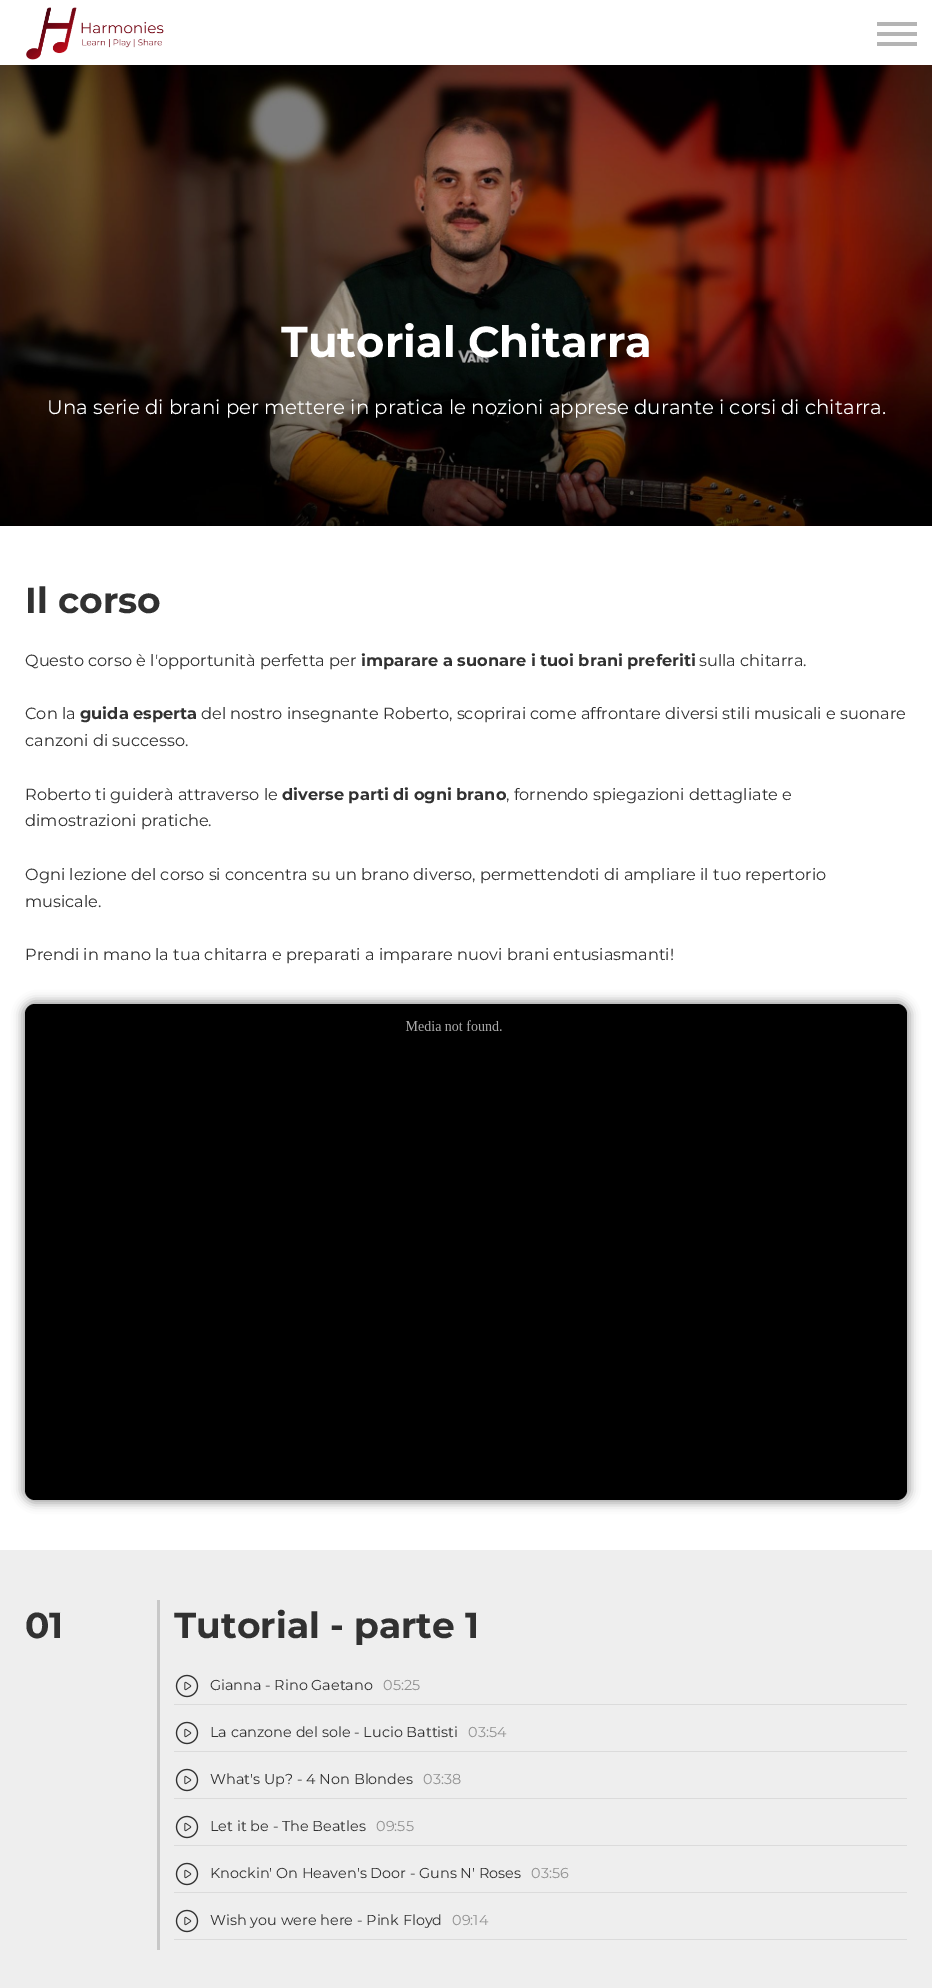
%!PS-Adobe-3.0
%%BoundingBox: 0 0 932 1988
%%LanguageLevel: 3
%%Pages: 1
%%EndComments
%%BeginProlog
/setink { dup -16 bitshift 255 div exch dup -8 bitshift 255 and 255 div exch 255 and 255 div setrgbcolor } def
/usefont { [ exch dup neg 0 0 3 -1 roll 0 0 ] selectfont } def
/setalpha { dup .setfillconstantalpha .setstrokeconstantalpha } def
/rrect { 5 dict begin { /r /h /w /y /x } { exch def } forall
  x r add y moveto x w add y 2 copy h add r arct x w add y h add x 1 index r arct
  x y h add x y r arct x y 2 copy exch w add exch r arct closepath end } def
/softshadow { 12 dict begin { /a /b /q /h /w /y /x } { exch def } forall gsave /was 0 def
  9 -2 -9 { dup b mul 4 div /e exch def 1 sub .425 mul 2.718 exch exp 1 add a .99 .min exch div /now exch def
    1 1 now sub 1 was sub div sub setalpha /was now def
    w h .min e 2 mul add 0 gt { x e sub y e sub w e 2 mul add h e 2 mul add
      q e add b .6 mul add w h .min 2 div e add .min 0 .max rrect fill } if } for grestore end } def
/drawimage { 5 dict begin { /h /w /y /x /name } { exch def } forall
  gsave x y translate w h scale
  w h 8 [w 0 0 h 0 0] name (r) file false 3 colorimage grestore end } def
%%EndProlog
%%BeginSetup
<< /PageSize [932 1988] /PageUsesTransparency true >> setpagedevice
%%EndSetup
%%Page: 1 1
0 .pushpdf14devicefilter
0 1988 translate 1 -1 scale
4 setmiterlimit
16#FFFFFF setink
0 0 932 1988 rectfill
(img1.raw) 26 7 138 53 drawimage
[
    [877 42 40 4 16#B4B4B4]
    [877 22 40 4 16#B4B4B4]
    [877 32 40 4 16#B4B4B4]
] { aload pop setink rectfill } forall
(img2.raw) 0 65 932 461 drawimage
/Montserrat-Bold 43.25 usefont
16#FFFFFF setink
281 357 moveto (Tutorial Chitarra) show
/Montserrat-Regular 19.8 usefont
47 414 moveto (Una serie di brani per mettere in pratica le nozioni apprese durante i corsi di chitarra.) show
/Montserrat-Bold 36 usefont
16#313131 setink
25 613 moveto (Il corso) show
/Montserrat-Regular 16.2 usefont
25 666 moveto (Questo corso è l'opportunità perfetta per) show
/Montserrat-Bold 16.2 usefont
361 666 moveto (imparare a suonare i tuoi brani preferiti) show
/Montserrat-Regular 16.2 usefont
699 666 moveto (sulla chitarra.) show
25 719 moveto (Con la) show
/Montserrat-Bold 16.2 usefont
80 719 moveto (guida esperta) show
/Montserrat-Regular 16.2 usefont
[
    [(del nostro insegnante Roberto, scoprirai come affrontare diversi stili musicali e suonare) 201 719]
    [(canzoni di successo.) 25 746]
    [(Roberto ti guiderà attraverso le) 25 800]
] { aload pop moveto show } forall
/Montserrat-Bold 16.2 usefont
282 800 moveto (diverse parti di ogni brano) show
/Montserrat-Regular 16.2 usefont
[
    [(, fornendo spiegazioni dettagliate e) 506 800]
    [(dimostrazioni pratiche.) 25 826]
    [(Ogni lezione del corso si concentra su un brano diverso, permettendoti di ampliare il tuo repertorio) 25 880]
    [(musicale.) 25 907]
    [(Prendi in mano la tua chitarra e preparati a imparare nuovi brani entusiasmanti!) 25 960]
] { aload pop moveto show } forall
16#9E9E9E setink
22 1001 888 502 13 5 1 softshadow
16#000000 setink
25 1004 882 496 10 rrect fill
(img3.raw) 405 1020 97 11 drawimage
16#EEEEEE setink
0 1550 932 438 rectfill
16#C8C8C8 setink
157 1600 3 350 rectfill
/Montserrat-Bold 36 usefont
16#313131 setink
25 1638 moveto (01) show
174 1638 moveto (Tutorial - parte 1) show
16#DBDBDB setink
174 1704 733 1 rectfill
(img4.raw) 175 1674 24 24 drawimage
/Montserrat-Regular 14.4 usefont
16#313131 setink
210 1690 moveto (Gianna - Rino Gaetano) show
16#909090 setink
383 1690 moveto (05:25) show
16#DBDBDB setink
174 1751 733 1 rectfill
(img4.raw) 175 1721 24 24 drawimage
16#313131 setink
210 1737 moveto (La canzone del sole - Lucio Battisti) show
16#909090 setink
468 1737 moveto (03:54) show
16#DBDBDB setink
174 1798 733 1 rectfill
(img4.raw) 175 1768 24 24 drawimage
16#313131 setink
210 1784 moveto (What's Up? - 4 Non Blondes) show
16#909090 setink
423 1784 moveto (03:38) show
16#DBDBDB setink
174 1845 733 1 rectfill
(img4.raw) 175 1815 24 24 drawimage
16#313131 setink
210 1831 moveto (Let it be - The Beatles) show
16#909090 setink
376 1831 moveto (09:55) show
16#DBDBDB setink
174 1892 733 1 rectfill
(img4.raw) 175 1862 24 24 drawimage
16#313131 setink
210 1878 moveto (Knockin' On Heaven's Door - Guns N' Roses) show
16#909090 setink
531 1878 moveto (03:56) show
16#DBDBDB setink
174 1939 733 1 rectfill
(img4.raw) 175 1909 24 24 drawimage
16#313131 setink
210 1925 moveto (Wish you were here - Pink Floyd) show
16#909090 setink
452 1925 moveto (09:14) show
.poppdf14devicefilter showpage
%%EOF
